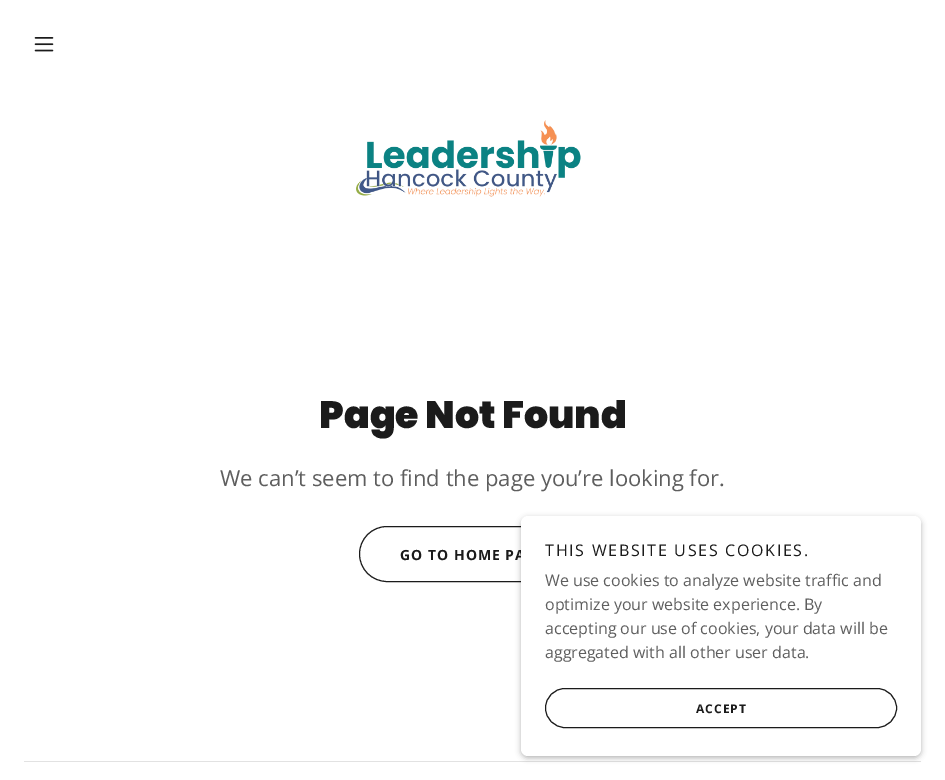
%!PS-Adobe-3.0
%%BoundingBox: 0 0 945 780
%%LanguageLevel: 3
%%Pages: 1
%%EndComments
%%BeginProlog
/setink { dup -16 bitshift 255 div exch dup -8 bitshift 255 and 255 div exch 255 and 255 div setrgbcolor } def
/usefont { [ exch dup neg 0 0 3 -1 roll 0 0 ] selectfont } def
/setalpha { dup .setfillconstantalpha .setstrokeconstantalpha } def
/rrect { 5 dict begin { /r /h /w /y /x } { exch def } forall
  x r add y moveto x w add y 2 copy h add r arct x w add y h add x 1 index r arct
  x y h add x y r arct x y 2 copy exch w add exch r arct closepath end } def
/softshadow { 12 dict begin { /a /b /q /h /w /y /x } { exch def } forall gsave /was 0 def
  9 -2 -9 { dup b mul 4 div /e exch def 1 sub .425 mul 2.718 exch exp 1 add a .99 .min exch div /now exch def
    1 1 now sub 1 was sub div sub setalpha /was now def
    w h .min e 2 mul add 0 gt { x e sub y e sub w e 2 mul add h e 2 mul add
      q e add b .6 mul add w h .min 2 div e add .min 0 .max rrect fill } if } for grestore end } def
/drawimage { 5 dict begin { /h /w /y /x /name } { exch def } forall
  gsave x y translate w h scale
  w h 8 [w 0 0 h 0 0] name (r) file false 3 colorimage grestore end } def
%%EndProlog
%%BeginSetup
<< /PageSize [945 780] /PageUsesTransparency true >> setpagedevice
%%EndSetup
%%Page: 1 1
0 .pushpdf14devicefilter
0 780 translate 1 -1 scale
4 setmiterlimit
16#FFFFFF setink
0 0 945 780 rectfill
(img1.raw) 34 37 20 15 drawimage
(img2.raw) 356 120 225 77 drawimage
/Poppins-Black 38 usefont
16#1B1B1B setink
319 428 moveto (Page Not Found) show
/OpenSans-Regular 22 usefont
16#5E5E5E setink
220 486 moveto (We can’t seem to find the page you’re looking for.) show
16#1B1B1B setink
359.5 526.5 226 55 27.5 rrect stroke
/OpenSans-Bold 14 usefont
400 560 moveto 1 0 (GO TO HOME PA) ashow
16#E2E2E2 setink
24 761 897 1 rectfill
16#000000 setink
521 518 400 240 7 3 0.3 softshadow
16#FFFFFF setink
521 516 400 240 7 rrect fill
/OpenSans-Regular 16 usefont
16#1B1B1B setink
545 556 moveto 1.7 0 (THIS WEBSITE USES COOKIES.) ashow
16#5E5E5E setink
[
    [(We use cookies to analyze website traffic and) 545 586]
    [(optimize your website experience. By) 545 610]
    [(accepting our use of cookies, your data will be) 545 634]
    [(aggregated with all other user data.) 545 658]
] { aload pop moveto show } forall
16#1B1B1B setink
545.5 688.5 351 39 19.5 rrect stroke
/OpenSans-Bold 12 usefont
696 713 moveto 1 0 (ACCEPT) ashow
.poppdf14devicefilter showpage
%%EOF
